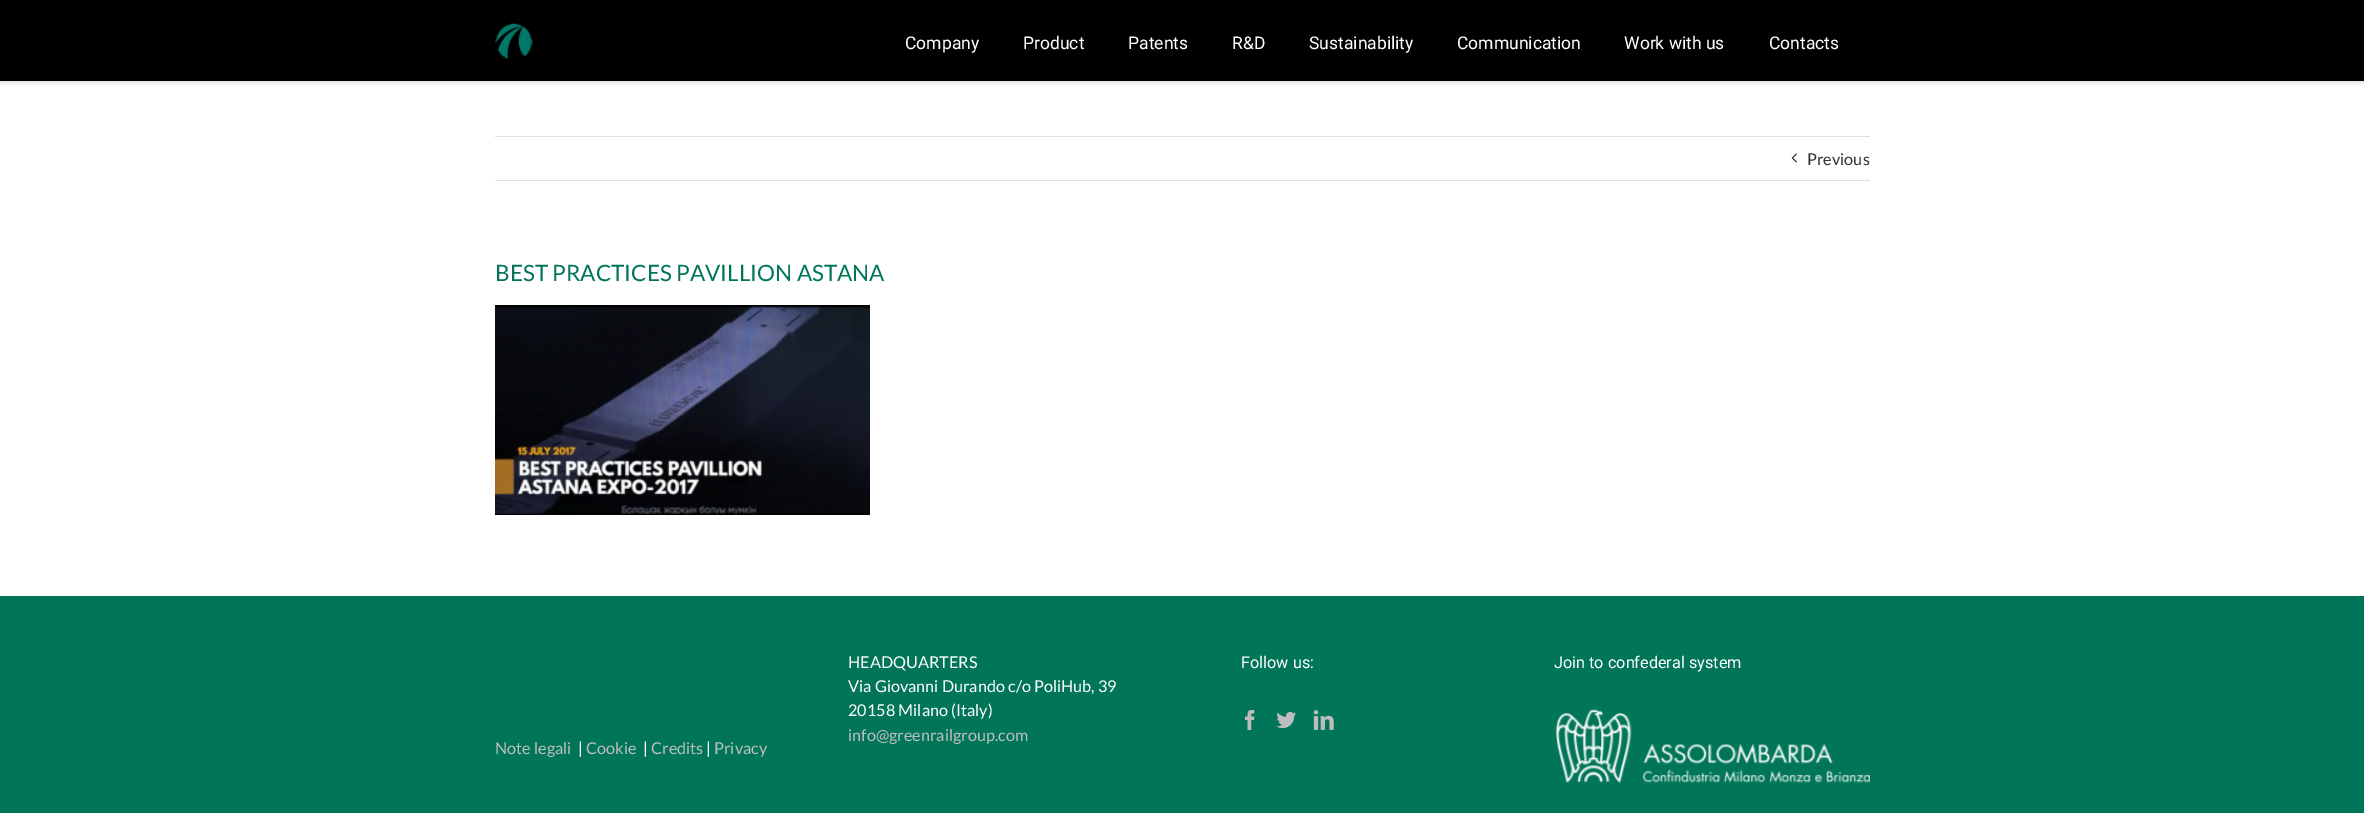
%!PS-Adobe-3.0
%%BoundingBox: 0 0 2364 813
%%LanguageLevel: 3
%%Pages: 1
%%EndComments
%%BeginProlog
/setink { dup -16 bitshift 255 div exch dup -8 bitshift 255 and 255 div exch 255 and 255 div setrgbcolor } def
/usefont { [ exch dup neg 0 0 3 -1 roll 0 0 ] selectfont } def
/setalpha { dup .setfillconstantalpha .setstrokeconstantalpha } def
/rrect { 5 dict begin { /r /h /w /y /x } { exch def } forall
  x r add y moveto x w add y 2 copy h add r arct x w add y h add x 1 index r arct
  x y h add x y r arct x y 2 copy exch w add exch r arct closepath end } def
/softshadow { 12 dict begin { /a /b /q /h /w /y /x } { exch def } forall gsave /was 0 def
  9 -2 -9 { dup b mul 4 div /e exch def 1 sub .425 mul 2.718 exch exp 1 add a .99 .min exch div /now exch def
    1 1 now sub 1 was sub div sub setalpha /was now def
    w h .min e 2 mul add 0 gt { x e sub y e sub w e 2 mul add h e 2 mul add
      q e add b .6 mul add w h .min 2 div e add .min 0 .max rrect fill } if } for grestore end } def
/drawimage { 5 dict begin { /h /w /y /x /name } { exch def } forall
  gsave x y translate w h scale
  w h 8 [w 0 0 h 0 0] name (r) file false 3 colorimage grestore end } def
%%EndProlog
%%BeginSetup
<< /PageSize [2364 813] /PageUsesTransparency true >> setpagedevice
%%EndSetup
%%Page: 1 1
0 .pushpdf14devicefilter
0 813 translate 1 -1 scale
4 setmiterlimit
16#FFFFFF setink
0 0 2364 813 rectfill
16#000000 setink
0 1 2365 82 0 2 0.12 softshadow
0 0 2364 81 rectfill
(img1.raw) 495 23 38 36 drawimage
/Roboto-Regular 17.5 usefont
16#FFFFFF setink
[
    [(Company) 905 49]
    [(Product) 1023 49]
    [(Patents) 1128 49]
    [(R&D) 1232 49]
    [(Sustainability) 1309 49]
    [(Communication) 1457 49]
    [(Work with us) 1624 49]
    [(Contacts) 1769 49]
] { aload pop moveto show } forall
16#E0DEDE setink
495 136 1375 1 rectfill
495 180 1375 1 rectfill
(img2.raw) 1791 153 6 10 drawimage
/Lato-Regular 16.25 usefont
16#333333 setink
1807 165 moveto (Previous) show
/Lato-Regular 22.5 usefont
16#007557 setink
495 281 moveto (BEST PRACTICES PAVILLION ASTANA) show
(img3.raw) 495 305 375 210 drawimage
0 596 2364 217 rectfill
/Lato-Regular 16.25 usefont
16#FFFFFF setink
[
    [(HEADQUARTERS) 848 668]
    [(Via Giovanni Durando c/o PoliHub, 39) 848 692]
    [(20158 Milano \(Italy\)) 848 716]
] { aload pop moveto show } forall
16#BFBFBF setink
848 741 moveto (info@greenrailgroup.com) show
/Roboto-Regular 16.25 usefont
16#FFFFFF setink
1241 668 moveto (Follow us:) show
(img4.raw) 1245 710 10 20 drawimage
(img5.raw) 1276 711 21 18 drawimage
(img6.raw) 1313 710 21 20 drawimage
1554 668 moveto (Join to confederal system) show
(img7.raw) 1555 709 315 74 drawimage
/Lato-Regular 16.25 usefont
16#BFBFBF setink
495 754 moveto (Note legali) show
16#FFFFFF setink
578 754 moveto (|) show
16#BFBFBF setink
586 754 moveto (Cookie) show
16#FFFFFF setink
643 754 moveto (|) show
16#BFBFBF setink
651 754 moveto (Credits) show
16#FFFFFF setink
706 754 moveto (|) show
16#BFBFBF setink
714 754 moveto (Privacy) show
.poppdf14devicefilter showpage
%%EOF
